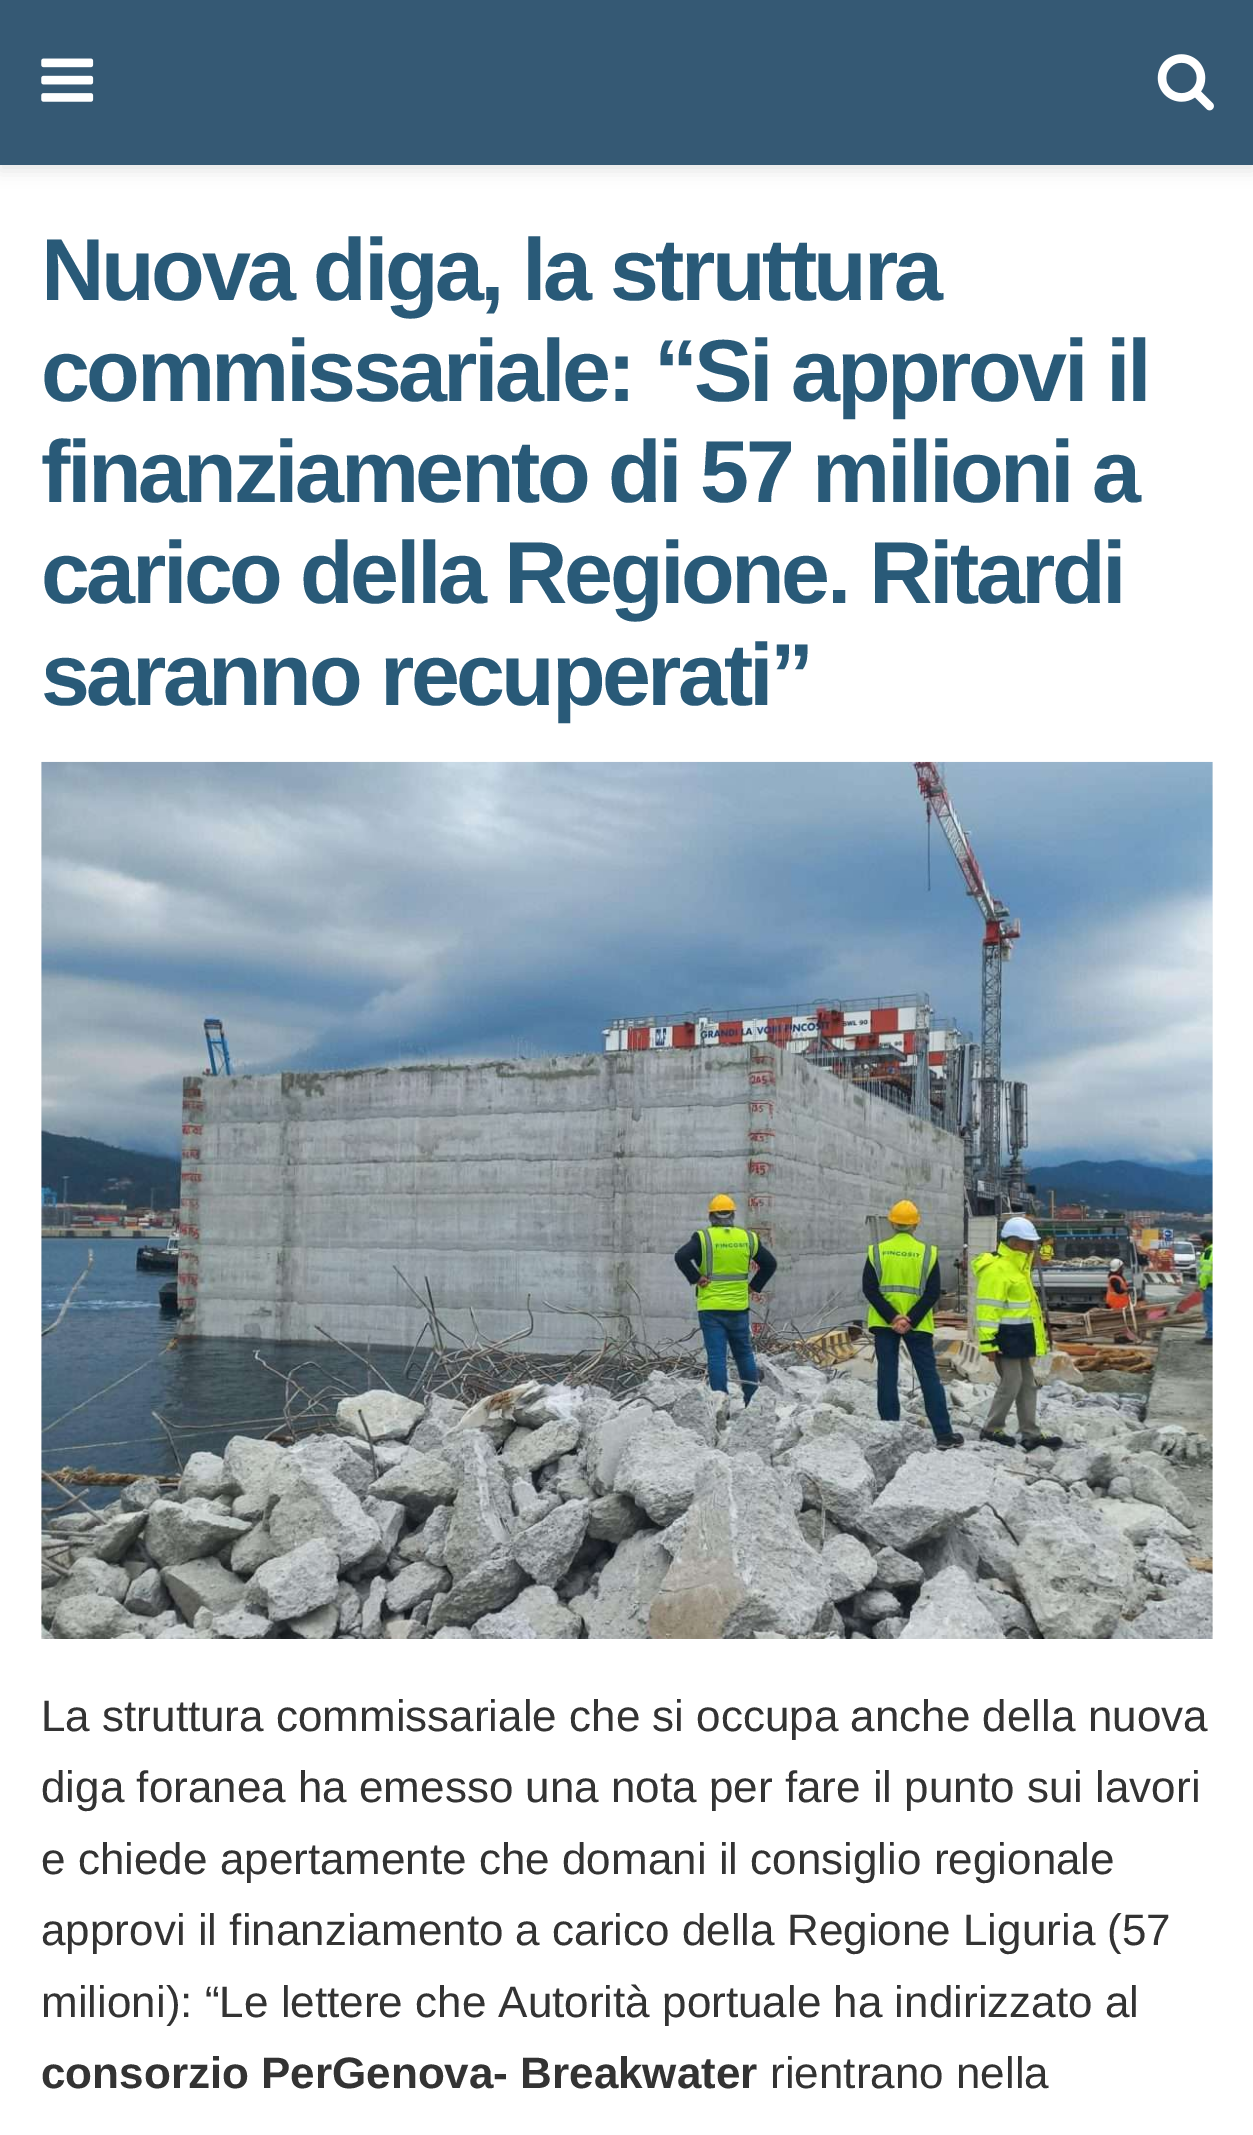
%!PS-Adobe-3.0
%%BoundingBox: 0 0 1253 2135
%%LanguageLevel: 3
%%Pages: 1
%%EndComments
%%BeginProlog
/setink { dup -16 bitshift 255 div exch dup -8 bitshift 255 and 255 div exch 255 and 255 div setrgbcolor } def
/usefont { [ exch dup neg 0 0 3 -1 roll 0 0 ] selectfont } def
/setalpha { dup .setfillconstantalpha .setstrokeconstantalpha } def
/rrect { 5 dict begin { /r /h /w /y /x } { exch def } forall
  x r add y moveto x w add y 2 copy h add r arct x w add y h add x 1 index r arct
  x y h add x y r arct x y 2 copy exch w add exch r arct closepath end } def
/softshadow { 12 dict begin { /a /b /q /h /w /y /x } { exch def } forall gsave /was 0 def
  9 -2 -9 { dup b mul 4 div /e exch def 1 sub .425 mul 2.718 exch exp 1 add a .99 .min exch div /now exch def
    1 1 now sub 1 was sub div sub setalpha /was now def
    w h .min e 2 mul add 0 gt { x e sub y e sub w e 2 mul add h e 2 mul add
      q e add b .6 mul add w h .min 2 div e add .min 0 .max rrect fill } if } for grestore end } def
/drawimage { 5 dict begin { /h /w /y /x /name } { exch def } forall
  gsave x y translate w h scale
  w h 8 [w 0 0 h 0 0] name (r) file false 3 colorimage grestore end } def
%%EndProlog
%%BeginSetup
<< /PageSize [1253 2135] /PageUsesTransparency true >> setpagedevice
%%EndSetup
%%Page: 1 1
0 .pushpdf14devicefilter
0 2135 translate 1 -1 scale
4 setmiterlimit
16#FFFFFF setink
0 0 1253 2135 rectfill
16#000000 setink
0 6 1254 165 0 8 0.1 softshadow
16#355974 setink
0 0 1253 165 rectfill
(img1.raw) 41 58 53 44 drawimage
(img2.raw) 1157 54 57 57 drawimage
/LiberationSans-Bold 88 usefont
16#295A78 setink
41 300 moveto -3.5 0 (Nuova diga, la struttura) ashow
41 401 moveto -3.5 0 (commissariale: “Si approvi il) ashow
41 502 moveto -3.5 0 (finanziamento di 57 milioni a) ashow
41 603 moveto -3.5 0 (carico della Regione. Ritardi) ashow
41 705 moveto -3.5 0 (saranno recuperati”) ashow
16#F7F7F7 setink
41 762 1172 877 rectfill
(img3.raw) 41 761 1172 878 drawimage
/LiberationSans-Regular 44 usefont
16#333333 setink
[
    [(La struttura commissariale che si occupa anche della nuova) 41 1731]
    [(diga foranea ha emesso una nota per fare il punto sui lavori) 41 1802]
    [(e chiede apertamente che domani il consiglio regionale) 41 1874]
    [(approvi il finanziamento a carico della Regione Liguria \(57) 41 1945]
    [(milioni\): “Le lettere che Autorità portuale ha indirizzato al) 41 2017]
] { aload pop moveto show } forall
/LiberationSans-Bold 44 usefont
41 2088 moveto (consorzio PerGenova- Breakwater) show
/LiberationSans-Regular 44 usefont
770 2088 moveto (rientrano nella) show
.poppdf14devicefilter showpage
%%EOF
